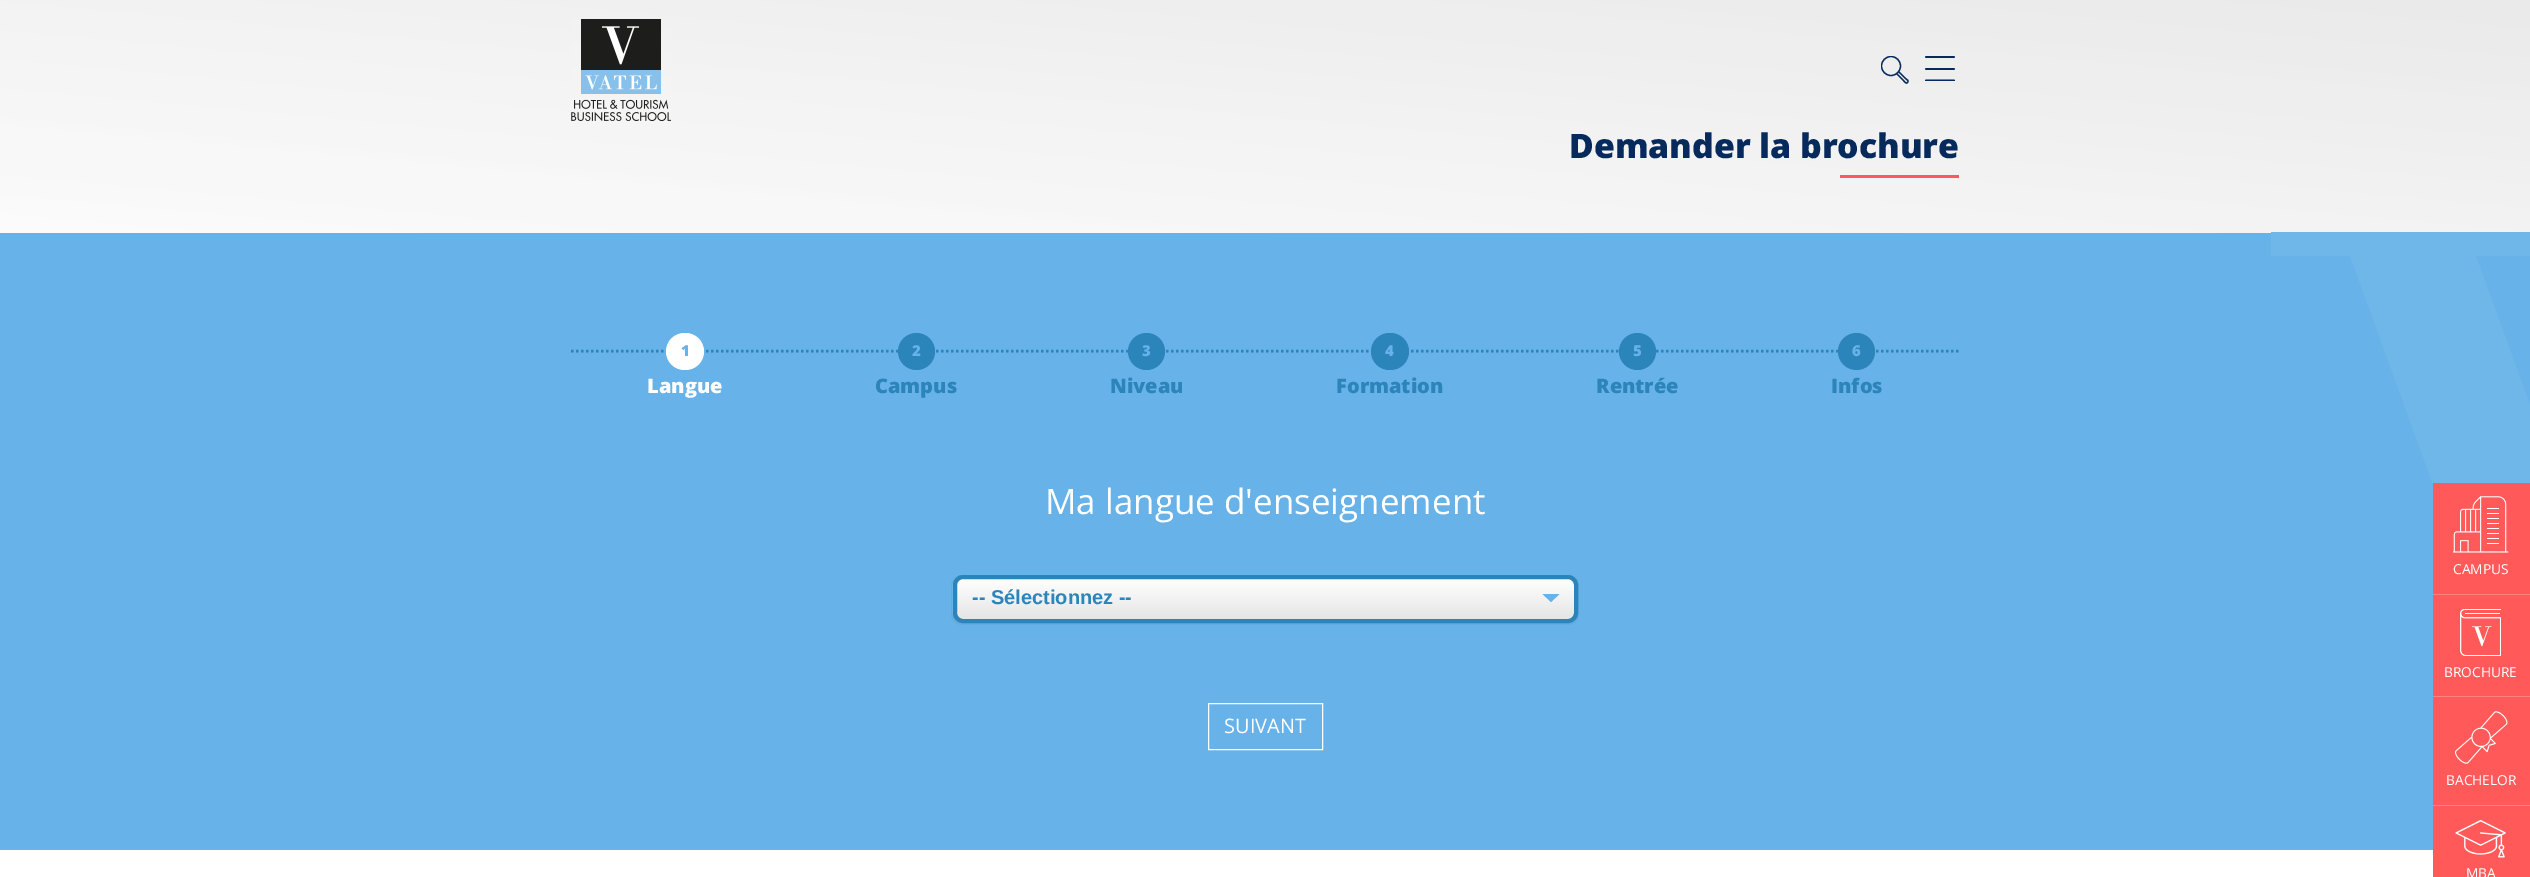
%!PS-Adobe-3.0
%%BoundingBox: 0 0 2530 877
%%LanguageLevel: 3
%%Pages: 1
%%EndComments
%%BeginProlog
/setink { dup -16 bitshift 255 div exch dup -8 bitshift 255 and 255 div exch 255 and 255 div setrgbcolor } def
/usefont { [ exch dup neg 0 0 3 -1 roll 0 0 ] selectfont } def
/disc { newpath 0 360 arc closepath } def
/rrect { 5 dict begin { /r /h /w /y /x } { exch def } forall
  x r add y moveto x w add y 2 copy h add r arct x w add y h add x 1 index r arct
  x y h add x y r arct x y 2 copy exch w add exch r arct closepath end } def
/drawimage { 5 dict begin { /h /w /y /x /name } { exch def } forall
  gsave x y translate w h scale
  w h 8 [w 0 0 h 0 0] name (r) file false 3 colorimage grestore end } def
%%EndProlog
%%BeginSetup
<< /PageSize [2530 877] >> setpagedevice
%%EndSetup
%%Page: 1 1
0 877 translate 1 -1 scale
4 setmiterlimit
16#FFFFFF setink
0 0 2530 877 rectfill
gsave 0 0 moveto 2530 0 lineto 2530 233 lineto 0 233 lineto closepath clip newpath
<< /ShadingType 2 /ColorSpace /DeviceRGB /Coords [1244 347 1286 -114] /Extend [true true] /Function << /FunctionType 3 /Domain [0 1] /Functions [<< /FunctionType 2 /Domain [0 1] /C0 [0.988 0.988 0.988] /C1 [0.969 0.969 0.969] /N 1 >> << /FunctionType 2 /Domain [0 1] /C0 [0.969 0.969 0.969] /C1 [0.953 0.953 0.953] /N 1 >> << /FunctionType 2 /Domain [0 1] /C0 [0.953 0.953 0.953] /C1 [0.933 0.933 0.933] /N 1 >> << /FunctionType 2 /Domain [0 1] /C0 [0.933 0.933 0.933] /C1 [0.918 0.918 0.918] /N 1 >>] /Bounds [0.25 0.5 0.75] /Encode [0 1 0 1 0 1 0 1] >> >> shfill grestore
(img1.raw) 571 19 100 102 drawimage
gsave
1881 56 28 28 rectclip
16#072A5D setink
1.3 setlinewidth
1891 66 9.5 disc stroke
grestore
16#072A5D setink
1.3 setlinewidth
1 setlinecap
1 setlinejoin
1899 72 moveto 1905 78 lineto 1907.5 80.5 1909.5 80.5 1907 83 curveto 1906 84 1903.5 80.5 1903 80 curveto 1897 74 lineto stroke
gsave
1925 56 30 25 rectclip
1.8 setlinewidth
0 setlinejoin
1926 57 moveto 1954 57 lineto 1926 80.5 moveto 1954 80.5 lineto 1926 69 moveto 1954 69 lineto stroke
grestore
/OpenSans-ExtraBold 33.75 usefont
1569 158 moveto (Demander la brochure) show
16#FF5959 setink
1840 175 119 3 rectfill
16#67B2E8 setink
0 233 2530 617 rectfill
16#6FB6E9 setink
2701 232 moveto 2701 256 lineto 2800 256 lineto 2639 704 lineto 2476 256 lineto 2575 256 lineto 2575 232 lineto 2271 232 lineto 2271 256 lineto 2350 256 lineto 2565 849 lineto 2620 849 lineto 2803 330 lineto 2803 233 lineto 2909 233 lineto closepath fill
16#2B85BB setink
2.5 setlinewidth
0 setlinecap
0 setlinejoin
[2.5 2.5] 0 setdash
571 351 moveto 1959 351 lineto stroke
16#FFFFFF setink
666 333 38 37 18.5 rrect fill
/OpenSans-ExtraBold 15 usefont
16#67B2E8 setink
681 356 moveto (1) show
/OpenSans-ExtraBold 20 usefont
16#FFFFFF setink
647 393 moveto (Langue) show
16#2B85BB setink
916.5 351.5 18.5 disc fill
/OpenSans-ExtraBold 15 usefont
16#67B2E8 setink
912 356 moveto (2) show
/OpenSans-ExtraBold 20 usefont
16#2B85BB setink
875 393 moveto (Campus) show
1146.5 351.5 18.5 disc fill
/OpenSans-ExtraBold 15 usefont
16#67B2E8 setink
1142 356 moveto (3) show
/OpenSans-ExtraBold 20 usefont
16#2B85BB setink
1110 393 moveto (Niveau) show
1371 333 38 37 18.5 rrect fill
/OpenSans-ExtraBold 15 usefont
16#67B2E8 setink
1385 356 moveto (4) show
/OpenSans-ExtraBold 20 usefont
16#2B85BB setink
1336 393 moveto (Formation) show
1637.5 351.5 18.5 disc fill
/OpenSans-ExtraBold 15 usefont
16#67B2E8 setink
1633 356 moveto (5) show
/OpenSans-ExtraBold 20 usefont
16#2B85BB setink
1596 393 moveto (Rentrée) show
1856.5 351.5 18.5 disc fill
/OpenSans-ExtraBold 15 usefont
16#67B2E8 setink
1852 356 moveto (6) show
/OpenSans-ExtraBold 20 usefont
16#2B85BB setink
1831 393 moveto (Infos) show
/OpenSans-Regular 35 usefont
16#FFFFFF setink
1045 514 moveto (Ma langue d'enseignement) show
16#63ABDF setink
962 575 moveto 956 575 951 580 951 586 curveto 951 614 lineto 951 620 956 625 962 625 curveto 1568 625 lineto 1574 625 1579 620 1579 614 curveto 1579 586 lineto 1579 580 1574 575 1568 575 curveto 1573 575 1578 579 1578 585 curveto 1578 612 lineto 1578 618 1573 622 1568 622 curveto 962 622 lineto 957 622 952 618 952 612 curveto 952 585 lineto 952 579 957 575 962 575 curveto closepath fill
gsave 956 579 618 40 6 rrect clip newpath
<< /ShadingType 2 /ColorSpace /DeviceRGB /Coords [1265 579 1265 619] /Extend [true true] /Function << /FunctionType 2 /Domain [0 1] /C0 [1 1 1] /C1 [0.898 0.898 0.898] /N 1 >> >> shfill grestore
16#67B2E8 setink
1559.5 594 moveto 1551 602 lineto 1542.5 594 lineto closepath fill
16#2B85BB setink
4 setlinewidth
[] 0 setdash
955 577 621 44 8 rrect stroke
/LiberationSans-Bold 20 usefont
972 604 moveto (-- Sélectionnez --) show
16#FFFFFF setink
1 setlinewidth
1208.5 703.5 114 46 rectstroke
/OpenSans-Regular 20 usefont
1224 733 moveto (SUIVANT) show
16#FF5959 setink
2433 483 97 394 rectfill
16#FF8082 setink
2433 594 97 1 rectfill
(img2.raw) 2453 496 56 57 drawimage
/OpenSans-Regular 13.75 usefont
16#FFFFFF setink
2453 574 moveto (CAMPUS) show
16#FF8082 setink
2433 696 97 1 rectfill
(img3.raw) 2460 609 41 47 drawimage
16#FFFFFF setink
2444 677 moveto (BROCHURE) show
16#FF8082 setink
2433 805 97 1 rectfill
(img4.raw) 2455 711 53 53 drawimage
16#FFFFFF setink
2446 785 moveto (BACHELOR) show
(img5.raw) 2455 820 51 38 drawimage
2466 878 moveto (MBA) show
showpage
%%EOF
